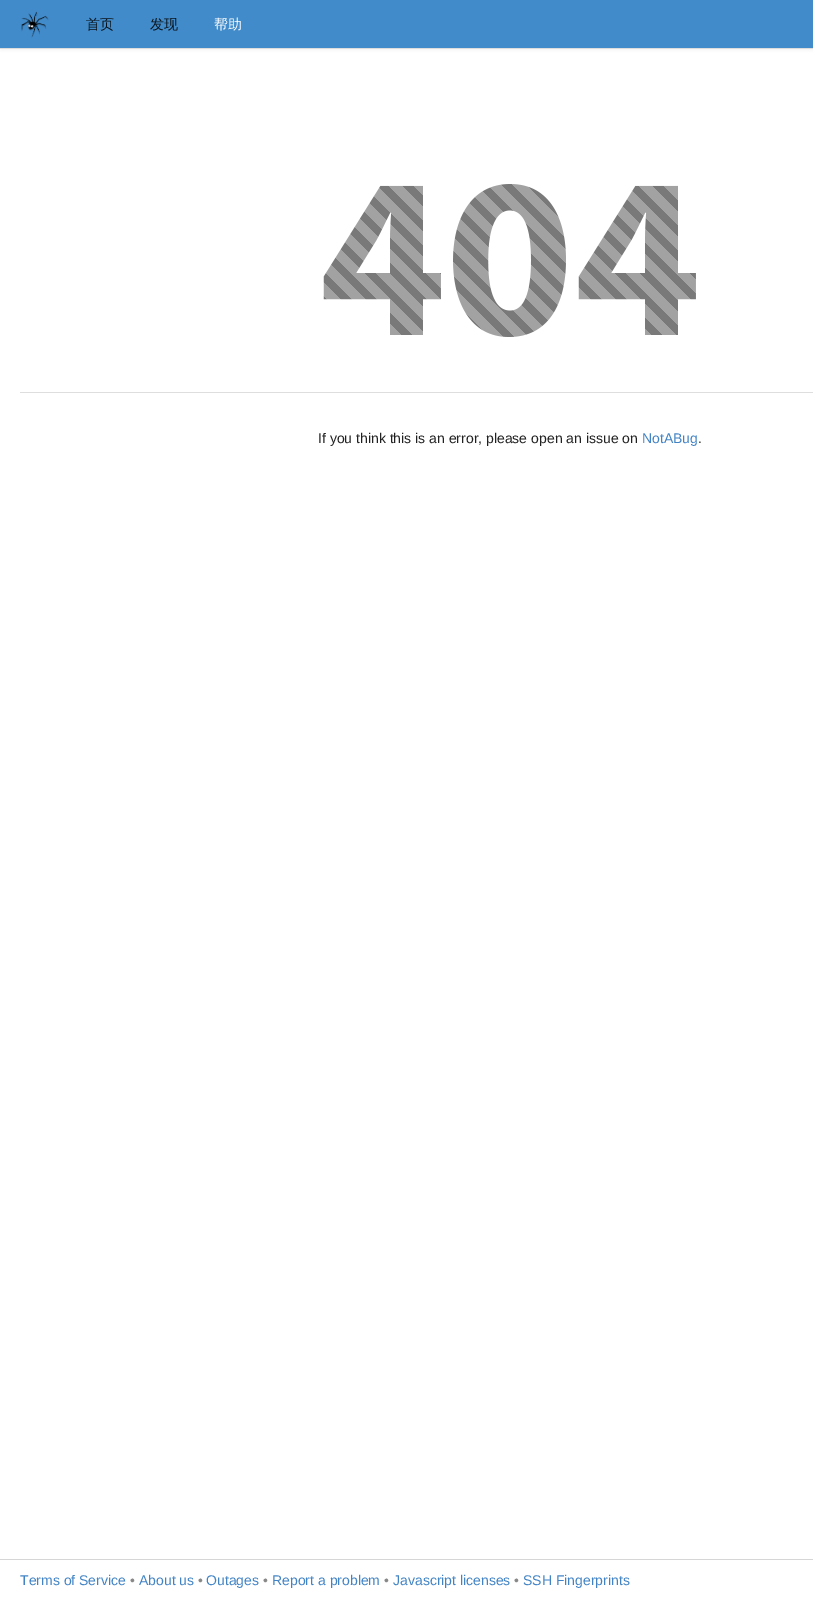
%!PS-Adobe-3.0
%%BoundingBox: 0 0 813 1599
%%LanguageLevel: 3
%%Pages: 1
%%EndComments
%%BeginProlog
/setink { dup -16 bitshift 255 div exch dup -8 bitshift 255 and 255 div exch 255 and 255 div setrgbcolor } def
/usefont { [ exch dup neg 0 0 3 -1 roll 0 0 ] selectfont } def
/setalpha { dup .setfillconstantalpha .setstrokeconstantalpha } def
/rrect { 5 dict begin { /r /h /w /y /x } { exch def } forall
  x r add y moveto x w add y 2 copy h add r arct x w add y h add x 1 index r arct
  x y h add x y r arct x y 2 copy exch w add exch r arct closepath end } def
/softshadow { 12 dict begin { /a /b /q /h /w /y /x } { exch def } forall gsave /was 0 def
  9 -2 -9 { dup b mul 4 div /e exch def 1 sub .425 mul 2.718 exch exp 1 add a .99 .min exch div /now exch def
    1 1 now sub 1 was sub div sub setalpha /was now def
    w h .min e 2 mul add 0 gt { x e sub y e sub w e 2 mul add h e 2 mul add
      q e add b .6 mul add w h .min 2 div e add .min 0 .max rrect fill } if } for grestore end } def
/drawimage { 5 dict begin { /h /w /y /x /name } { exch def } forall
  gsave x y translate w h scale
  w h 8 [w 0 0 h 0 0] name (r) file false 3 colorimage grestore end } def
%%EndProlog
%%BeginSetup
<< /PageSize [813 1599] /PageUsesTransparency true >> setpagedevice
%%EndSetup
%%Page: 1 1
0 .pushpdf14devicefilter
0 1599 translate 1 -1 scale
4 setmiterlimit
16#FFFFFF setink
0 0 813 1599 rectfill
16#000000 setink
0 -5 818 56 0 1.5 0.04 softshadow
16#428BCA setink
0 0 813 48 rectfill
16#DDDDDD setink
0 48 813 1 rectfill
(img1.raw) 21 11 28 27 drawimage
/WenQuanYiZenHei-Medium 14 usefont
16#09121A setink
86 29 moveto (首页) show
150 29 moveto (发现) show
16#FFFFFF setink
214 29 moveto (帮助) show
(img2.raw) 323 184 373 153 drawimage
16#DEDEDE setink
20 392 793 1 rectfill
/LiberationSans-Regular 14 usefont
16#212121 setink
318 443 moveto (If you think this is an error, please open an issue on) show
16#4183C4 setink
642 443 moveto (NotABug) show
16#212121 setink
698 443 moveto (.) show
16#D6D6D6 setink
0 1559 813 1 rectfill
16#4183C4 setink
20 1585 moveto (Terms of Service) show
16#888888 setink
130 1585 moveto (•) show
16#4183C4 setink
139 1585 moveto (About us) show
16#888888 setink
198 1585 moveto (•) show
16#4183C4 setink
206 1585 moveto (Outages) show
16#888888 setink
263 1585 moveto (•) show
16#4183C4 setink
272 1585 moveto (Report a problem) show
16#888888 setink
384 1585 moveto (•) show
16#4183C4 setink
393 1585 moveto (Javascript licenses) show
16#888888 setink
514 1585 moveto (•) show
16#4183C4 setink
523 1585 moveto (SSH Fingerprints) show
.poppdf14devicefilter showpage
%%EOF
